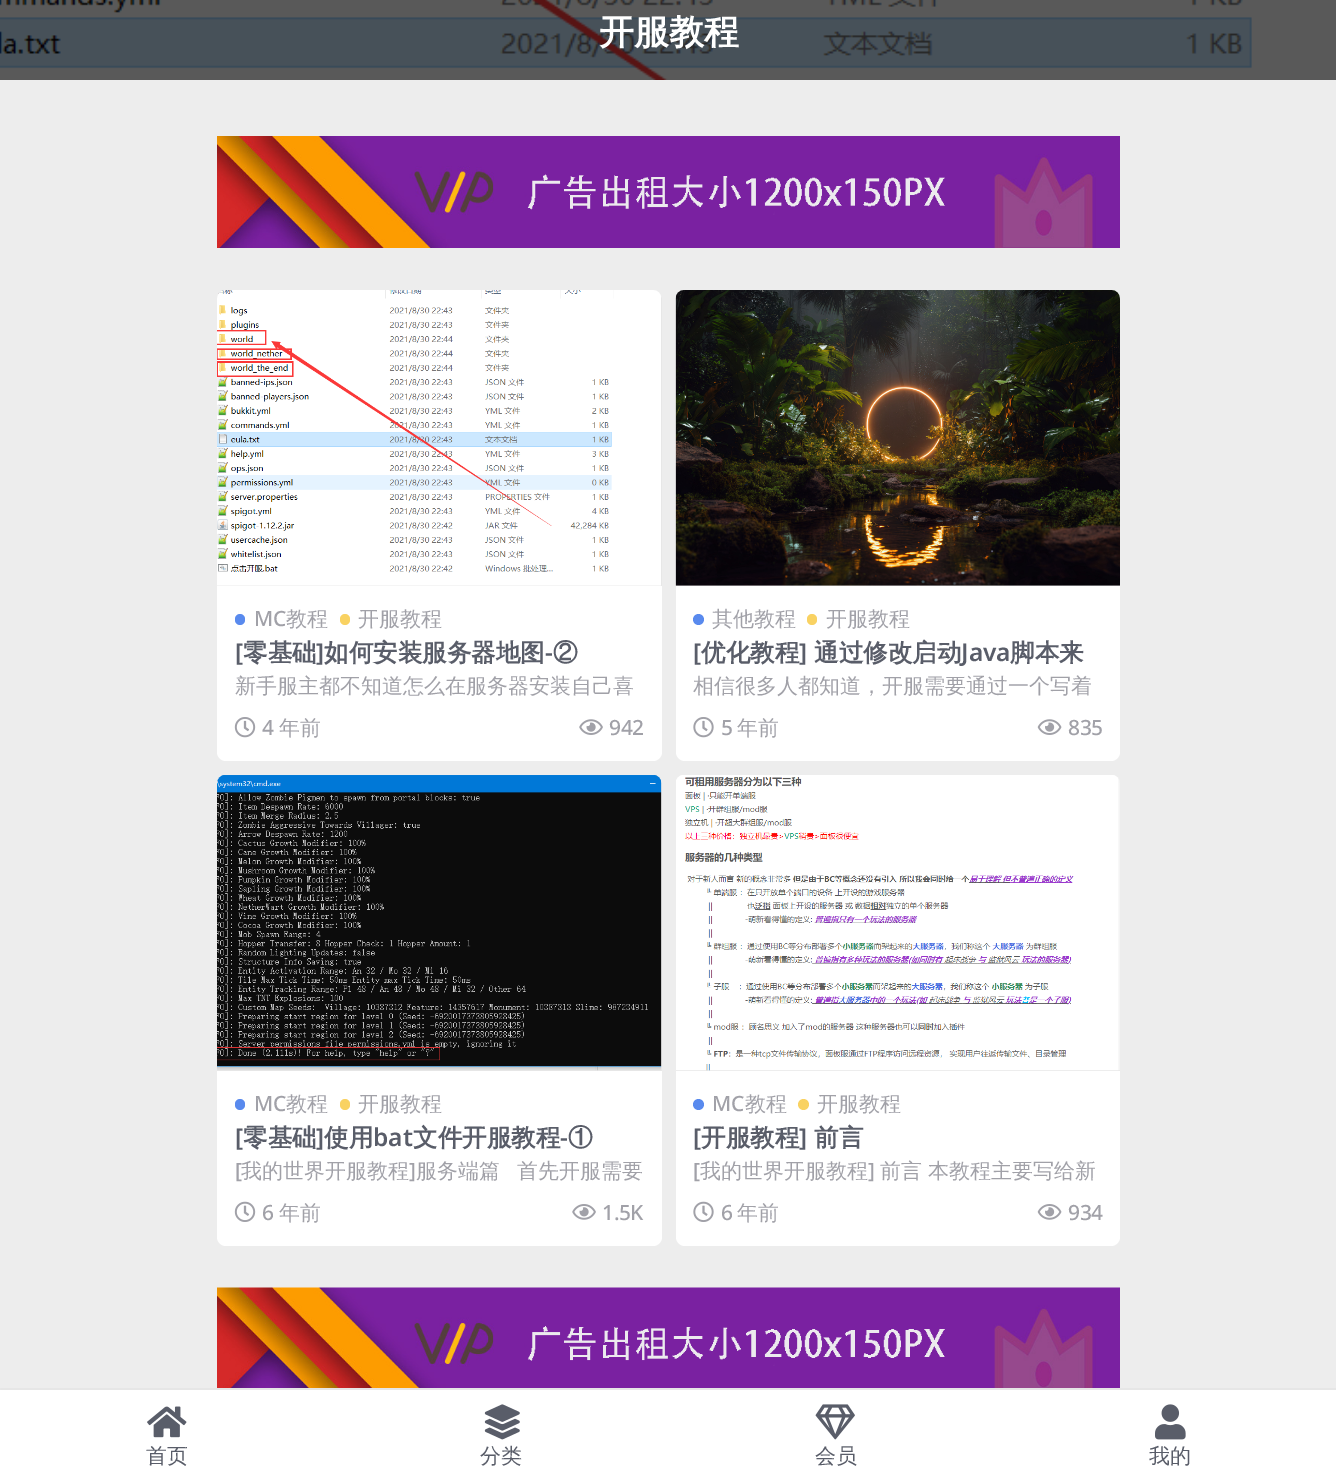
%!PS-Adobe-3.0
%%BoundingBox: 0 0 1336 1480
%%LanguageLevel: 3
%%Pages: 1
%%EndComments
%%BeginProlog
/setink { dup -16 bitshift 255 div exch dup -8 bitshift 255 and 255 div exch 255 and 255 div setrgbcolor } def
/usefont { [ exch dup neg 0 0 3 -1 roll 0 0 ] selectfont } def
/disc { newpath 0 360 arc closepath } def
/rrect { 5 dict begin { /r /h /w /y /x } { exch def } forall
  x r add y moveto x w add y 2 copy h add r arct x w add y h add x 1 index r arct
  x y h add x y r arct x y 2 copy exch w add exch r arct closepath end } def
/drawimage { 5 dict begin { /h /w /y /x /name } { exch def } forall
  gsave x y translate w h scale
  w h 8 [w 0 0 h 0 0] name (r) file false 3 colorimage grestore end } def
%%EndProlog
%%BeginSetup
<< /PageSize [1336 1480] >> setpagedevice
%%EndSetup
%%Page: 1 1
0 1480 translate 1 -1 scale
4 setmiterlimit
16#EDEDED setink
0 0 1336 1480 rectfill
(img1.raw) 0 0 1336 80 drawimage
/WenQuanYiZenHei-Bold 35 usefont
16#FFFFFF setink
599 44 moveto (开服教程) show
(img2.raw) 217 136 903 112 drawimage
217 291 445 470 9 rrect fill
16#E7E7E7 setink
226 291 moveto 653 291 lineto 658 291 662 295 662 300 curveto 662 586 lineto 217 586 lineto 217 300 lineto 217 295 221 291 226 291 curveto closepath fill
(img3.raw) 217 290 444 296 drawimage
16#598AEE setink
235 614 10 11 5 rrect fill
/NotoSans-Medium 21 usefont
16#A1A1A8 setink
254 626 moveto (MC) show
/WenQuanYiZenHei-Medium 21 usefont
286 626 moveto (教程) show
16#F9D262 setink
340 614 10 11 5 rrect fill
16#A1A1A8 setink
358 626 moveto (开服教程) show
/NotoSans-SemiBold 24.5 usefont
16#595D69 setink
235 661 moveto ([) show
/WenQuanYiZenHei-Bold 24.5 usefont
243 661 moveto (零基础) show
/NotoSans-SemiBold 24.5 usefont
316 661 moveto (]) show
/WenQuanYiZenHei-Bold 24.5 usefont
324 661 moveto (如何安装服务器地图) show
/NotoSans-SemiBold 24.5 usefont
545 661 moveto (-) show
/WenQuanYiZenHei-Bold 24.5 usefont
553 661 moveto (②) show
/WenQuanYiZenHei-Medium 21 usefont
16#A1A1A8 setink
235 693 moveto (新手服主都不知道怎么在服务器安装自己喜) show
(img4.raw) 234 717 22 21 drawimage
/NotoSans-Medium 21 usefont
262 735 moveto -0.5 0 (4) ashow
/WenQuanYiZenHei-Medium 21 usefont
279 735 moveto -0.5 0 (年前) ashow
(img5.raw) 579 719 24 16 drawimage
/NotoSans-Medium 21 usefont
609 735 moveto -0.5 0 (942) ashow
16#FFFFFF setink
676 291 444 470 9 rrect fill
16#E7E7E7 setink
685 291 moveto 1111 291 lineto 1116 291 1120 295 1120 300 curveto 1120 586 lineto 676 586 lineto 676 300 lineto 676 295 680 291 685 291 curveto closepath fill
(img6.raw) 675 290 445 296 drawimage
16#598AEE setink
698.5 619.5 5.5 disc fill
/WenQuanYiZenHei-Medium 21 usefont
16#A1A1A8 setink
712 626 moveto (其他教程) show
16#F9D262 setink
807 614 10 11 5 rrect fill
16#A1A1A8 setink
826 626 moveto (开服教程) show
/NotoSans-SemiBold 24.5 usefont
16#595D69 setink
693 661 moveto ([) show
/WenQuanYiZenHei-Bold 24.5 usefont
701 661 moveto (优化教程) show
/NotoSans-SemiBold 24.5 usefont
799 661 moveto (]) show
/WenQuanYiZenHei-Bold 24.5 usefont
814 661 moveto (通过修改启动) show
/NotoSans-SemiBold 24.5 usefont
961 661 moveto (Java) show
/WenQuanYiZenHei-Bold 24.5 usefont
1010 661 moveto (脚本来) show
/WenQuanYiZenHei-Medium 21 usefont
16#A1A1A8 setink
693 693 moveto (相信很多人都知道，开服需要通过一个写着) show
(img7.raw) 693 717 21 21 drawimage
/NotoSans-Medium 21 usefont
721 735 moveto -0.5 0 (5) ashow
/WenQuanYiZenHei-Medium 21 usefont
737 735 moveto -0.5 0 (年前) ashow
(img8.raw) 1037 719 25 16 drawimage
/NotoSans-Medium 21 usefont
1068 735 moveto -0.5 0 (835) ashow
16#FFFFFF setink
217 775 445 471 9 rrect fill
16#E7E7E7 setink
226 775 moveto 653 775 lineto 658 775 662 779 662 784 curveto 662 1071 lineto 217 1071 lineto 217 784 lineto 217 779 221 775 226 775 curveto closepath fill
(img9.raw) 217 775 445 296 drawimage
16#598AEE setink
235 1099 10 11 5 rrect fill
16#A1A1A8 setink
254 1111 moveto (MC) show
/WenQuanYiZenHei-Medium 21 usefont
286 1111 moveto (教程) show
16#F9D262 setink
340 1099 10 11 5 rrect fill
16#A1A1A8 setink
358 1111 moveto (开服教程) show
/NotoSans-SemiBold 24.5 usefont
16#595D69 setink
235 1146 moveto ([) show
/WenQuanYiZenHei-Bold 24.5 usefont
243 1146 moveto (零基础) show
/NotoSans-SemiBold 24.5 usefont
316 1146 moveto (]) show
/WenQuanYiZenHei-Bold 24.5 usefont
324 1146 moveto (使用) show
/NotoSans-SemiBold 24.5 usefont
373 1146 moveto (bat) show
/WenQuanYiZenHei-Bold 24.5 usefont
413 1146 moveto (文件开服教程) show
/NotoSans-SemiBold 24.5 usefont
560 1146 moveto (-) show
/WenQuanYiZenHei-Bold 24.5 usefont
568 1146 moveto (①) show
/NotoSans-Medium 21 usefont
16#A1A1A8 setink
235 1178 moveto ([) show
/WenQuanYiZenHei-Medium 21 usefont
241 1178 moveto (我的世界开服教程) show
/NotoSans-Medium 21 usefont
409 1178 moveto (]) show
/WenQuanYiZenHei-Medium 21 usefont
416 1178 moveto (服务端篇) show
517 1178 moveto (首先开服需要) show
(img10.raw) 234 1201 22 21 drawimage
/NotoSans-Medium 21 usefont
262 1220 moveto -0.5 0 (6) ashow
/WenQuanYiZenHei-Medium 21 usefont
279 1220 moveto -0.5 0 (年前) ashow
(img11.raw) 572 1204 24 16 drawimage
/NotoSans-Medium 21 usefont
602 1220 moveto -0.5 0 (1.5K) ashow
16#FFFFFF setink
676 775 444 471 9 rrect fill
16#E7E7E7 setink
685 775 moveto 1111 775 lineto 1116 775 1120 779 1120 784 curveto 1120 1071 lineto 676 1071 lineto 676 784 lineto 676 779 680 775 685 775 curveto closepath fill
(img12.raw) 676 775 444 296 drawimage
16#598AEE setink
698.5 1104.5 5.5 disc fill
16#A1A1A8 setink
712 1111 moveto (MC) show
/WenQuanYiZenHei-Medium 21 usefont
745 1111 moveto (教程) show
16#F9D262 setink
803.5 1104.5 5.5 disc fill
16#A1A1A8 setink
817 1111 moveto (开服教程) show
/NotoSans-SemiBold 24.5 usefont
16#595D69 setink
693 1146 moveto ([) show
/WenQuanYiZenHei-Bold 24.5 usefont
701 1146 moveto (开服教程) show
/NotoSans-SemiBold 24.5 usefont
799 1146 moveto (]) show
/WenQuanYiZenHei-Bold 24.5 usefont
814 1146 moveto (前言) show
/NotoSans-Medium 21 usefont
16#A1A1A8 setink
693 1178 moveto ([) show
/WenQuanYiZenHei-Medium 21 usefont
700 1178 moveto (我的世界开服教程) show
/NotoSans-Medium 21 usefont
868 1178 moveto (]) show
/WenQuanYiZenHei-Medium 21 usefont
880 1178 moveto (前言 本教程主要写给新) show
(img13.raw) 693 1201 21 21 drawimage
/NotoSans-Medium 21 usefont
721 1220 moveto -0.5 0 (6) ashow
/WenQuanYiZenHei-Medium 21 usefont
737 1220 moveto -0.5 0 (年前) ashow
(img14.raw) 1037 1204 25 16 drawimage
/NotoSans-Medium 21 usefont
1068 1220 moveto -0.5 0 (934) ashow
(img15.raw) 217 1287 903 101 drawimage
16#FFFFFF setink
0 1388 1336 92 rectfill
16#E6E6E6 setink
0 1388 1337 2 1 rrect fill
(img16.raw) 147 1406 40 32 drawimage
/WenQuanYiZenHei-Medium 21 usefont
16#595D69 setink
146 1463 moveto (首页) show
(img17.raw) 484 1404 36 36 drawimage
480 1463 moveto (分类) show
(img18.raw) 815 1404 40 36 drawimage
815 1463 moveto (会员) show
(img19.raw) 1155 1404 31 36 drawimage
1149 1463 moveto (我的) show
showpage
%%EOF
